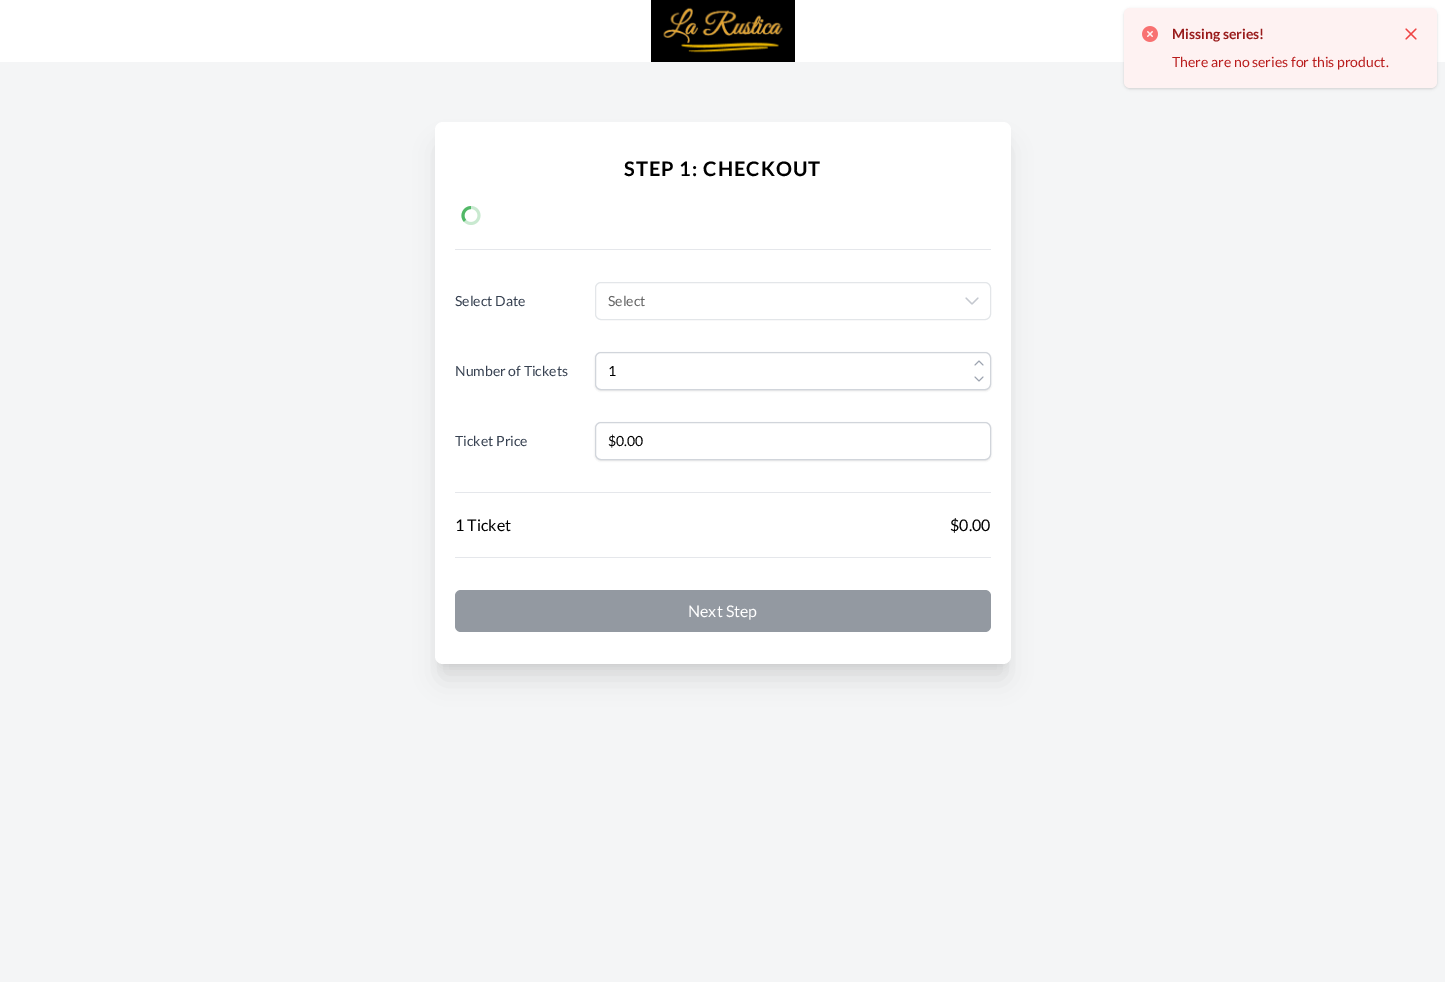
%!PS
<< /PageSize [1445 982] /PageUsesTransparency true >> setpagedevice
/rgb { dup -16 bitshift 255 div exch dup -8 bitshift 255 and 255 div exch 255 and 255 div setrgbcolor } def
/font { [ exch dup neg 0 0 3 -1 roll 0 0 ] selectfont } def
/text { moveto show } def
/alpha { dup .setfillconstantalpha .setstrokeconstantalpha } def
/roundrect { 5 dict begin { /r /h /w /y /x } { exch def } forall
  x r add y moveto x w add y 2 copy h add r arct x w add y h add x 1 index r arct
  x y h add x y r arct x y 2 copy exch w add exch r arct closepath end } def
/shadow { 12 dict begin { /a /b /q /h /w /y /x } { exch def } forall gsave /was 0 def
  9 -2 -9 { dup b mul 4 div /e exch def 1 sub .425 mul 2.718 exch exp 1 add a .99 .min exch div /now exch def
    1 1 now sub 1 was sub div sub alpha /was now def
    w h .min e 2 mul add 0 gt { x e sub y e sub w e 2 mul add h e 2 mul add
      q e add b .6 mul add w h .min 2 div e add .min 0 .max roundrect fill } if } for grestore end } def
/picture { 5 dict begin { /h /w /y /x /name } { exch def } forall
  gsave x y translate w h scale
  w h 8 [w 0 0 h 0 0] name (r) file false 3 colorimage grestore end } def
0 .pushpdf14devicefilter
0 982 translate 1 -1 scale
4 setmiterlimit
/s1 { /Lato-Bold 14 font 16#991B1B rgb } def
/s2 { /Lato-Regular 14 font 16#B91C1C rgb } def
/s3 { /Lato-Regular 14 font 16#374151 rgb } def
/s4 { /Lato-Regular 14 font 16#666666 rgb } def
/s5 { /Lato-Regular 14 font 16#000000 rgb } def
/s6 { /Lato-Regular 16 font 16#000000 rgb } def
/s7 { /Lato-Regular 16 font 16#FFFFFF rgb } def
16#F4F5F6 rgb
0 0 1445 982 rectfill
16#FFFFFF rgb
0 0 1445 62 rectfill
(pic1.raw) 651 0 144 62 picture
16#000000 rgb
1125 10 311 78 5 1 0.1 shadow
1124 9 313 80 6 1.5 0.1 shadow
16#FEF2F2 rgb
1124 8 313 80 6 roundrect fill
(pic2.raw) 1142 26 16 16 picture
s1
(Missing series!) 1172 39 text
s2
(There are no series for this product.) 1172 67 text
16#EF4444 rgb
1.2 setlinewidth
1 setlinecap
1 setlinejoin
1406 39 moveto 1416 29 lineto 1406 29 moveto 1416 39 lineto stroke
16#000000 rgb
441 136 564 530 2 5 0.1 shadow
440 147 566 532 3 12.5 0.1 shadow
16#FFFFFF rgb
435 122 576 542 8 roundrect fill
/Lato-Bold 20 font
16#000000 rgb
624 176 moveto 1 0 (STEP 1: CHECKOUT) ashow
16#E5E7EB rgb
455 249 536 1 rectfill
(pic3.raw) 461 206 20 19 picture
s3
(Select Date) 455 306 text
16#E3E6E9 rgb
1 setlinewidth
0 setlinecap
0 setlinejoin
595.5 282.5 395 37 5.5 roundrect stroke
s4
(Select) 608 306 text
16#C4C8CF rgb
1.2 setlinewidth
1 setlinecap
1 setlinejoin
978 298 moveto 972 304 lineto 966 298 lineto stroke
s3
(Number of Tickets) 455 376 text
16#000000 rgb
595 353 396 38 6 1 0.05 shadow
595 353 396 38 6 1 0.05 shadow
16#FFFFFF rgb
595.5 352.5 395 37 5.5 roundrect gsave fill grestore
16#D1D5DB rgb
1 setlinewidth
0 setlinecap
0 setlinejoin
stroke
s5
(1) 608 376 text
16#9CA3AF rgb
0.8 setlinewidth
1 setlinecap
1 setlinejoin
975 365 moveto 979 361 lineto 983 365 lineto 983 377 moveto 979 381 lineto 975 377 lineto stroke
s3
(Ticket Price) 455 446 text
16#000000 rgb
595 423 396 38 6 1 0.05 shadow
595 423 396 38 6 1 0.05 shadow
16#FFFFFF rgb
595.5 422.5 395 37 5.5 roundrect gsave fill grestore
16#D1D5DB rgb
1 setlinewidth
0 setlinecap
0 setlinejoin
stroke
s5
($0.00) 608 446 text
16#E5E7EB rgb
455 492 536 1 rectfill
455 557 536 1 rectfill
s6
(1 Ticket) 455 531 text
($0.00) 950 531 text
16#9399A1 rgb
455 590 536 42 6 roundrect fill
s7
(Next Step) 688 617 text
.poppdf14devicefilter showpage
